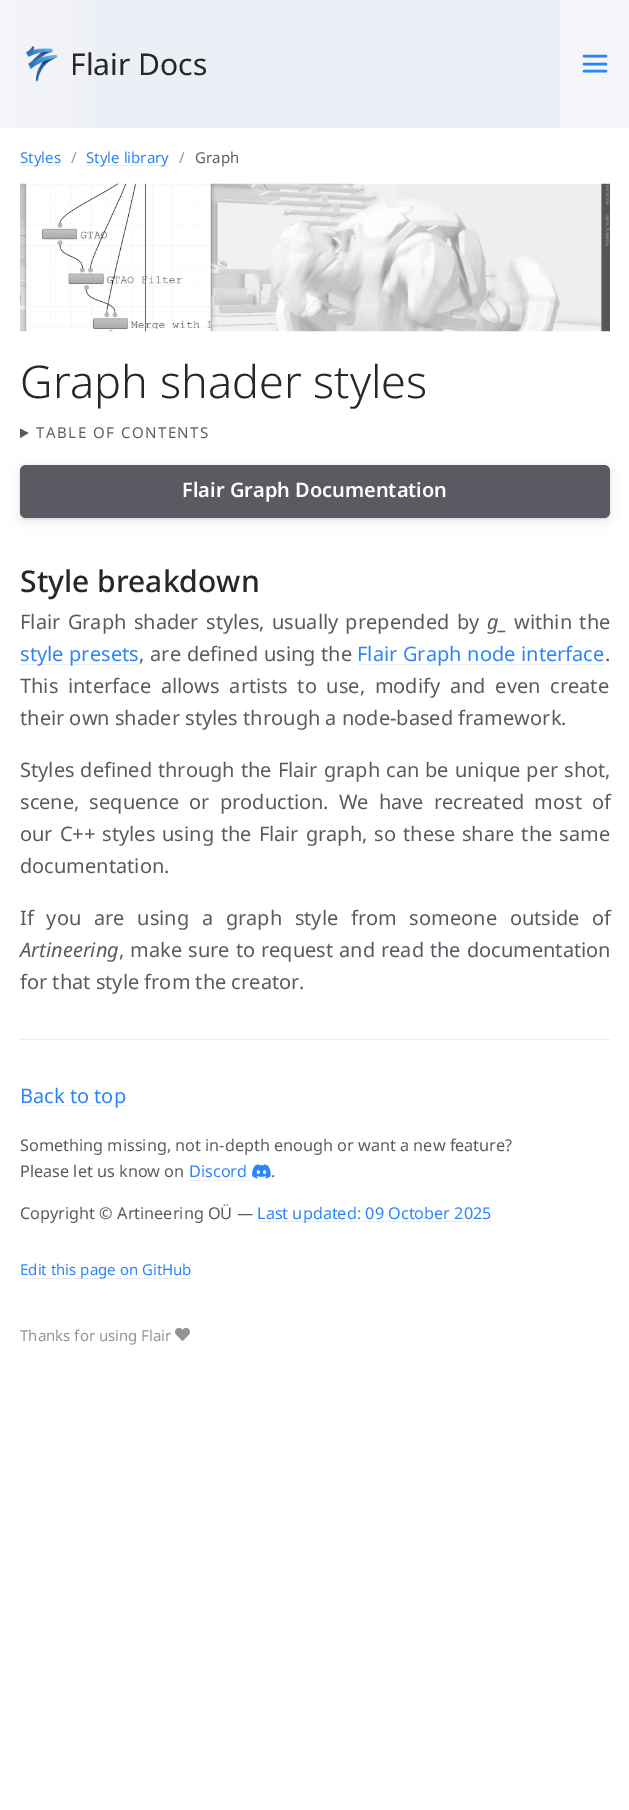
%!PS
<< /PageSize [629 1810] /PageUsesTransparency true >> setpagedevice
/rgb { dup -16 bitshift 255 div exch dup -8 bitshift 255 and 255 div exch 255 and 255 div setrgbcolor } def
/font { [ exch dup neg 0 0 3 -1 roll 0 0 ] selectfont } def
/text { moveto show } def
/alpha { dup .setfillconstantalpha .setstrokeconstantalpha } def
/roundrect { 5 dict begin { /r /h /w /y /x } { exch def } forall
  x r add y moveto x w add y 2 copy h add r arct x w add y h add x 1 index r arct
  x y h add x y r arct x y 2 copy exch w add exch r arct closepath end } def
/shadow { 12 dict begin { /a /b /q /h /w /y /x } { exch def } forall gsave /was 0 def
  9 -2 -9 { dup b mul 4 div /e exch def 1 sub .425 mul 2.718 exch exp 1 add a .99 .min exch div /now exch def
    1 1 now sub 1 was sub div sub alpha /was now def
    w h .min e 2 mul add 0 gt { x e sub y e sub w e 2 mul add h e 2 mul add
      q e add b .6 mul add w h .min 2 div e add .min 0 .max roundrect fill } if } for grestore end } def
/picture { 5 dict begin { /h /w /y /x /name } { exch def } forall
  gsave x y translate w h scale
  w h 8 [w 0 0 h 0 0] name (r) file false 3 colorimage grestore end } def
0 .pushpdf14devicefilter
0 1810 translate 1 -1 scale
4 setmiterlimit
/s1 { /NotoSans-Regular 30 font 16#27262B rgb } def
/s2 { /NotoSans-Regular 15 font 16#959396 rgb } def
/s3 { /NotoSans-Regular 15 font 16#2C84FA rgb } def
/s4 { /NotoSans-Regular 15 font 16#5C5962 rgb } def
/s5 { /NotoSans-Light 45 font 16#27262B rgb } def
/s6 { /NotoSans-SemiBold 20 font 16#FFFFFF rgb } def
/s7 { /NotoSans-Medium 30 font 16#27262B rgb } def
/s8 { /NotoSans-Italic 20 font 16#5C5962 rgb } def
/s9 { /NotoSans-Regular 20 font 16#5C5962 rgb } def
/s10 { /NotoSans-Regular 20 font 16#2C84FA rgb } def
/s11 { /NotoSans-Regular 16.25 font 16#5C5962 rgb } def
/s12 { /NotoSans-Regular 16.25 font 16#2C84FA rgb } def
16#FFFFFF rgb
0 0 629 1810 rectfill
16#F5F6FA rgb
560 0 69 128 rectfill
gsave 0 0 moveto 560 0 lineto 560 128 lineto 0 128 lineto closepath clip newpath
<< /ShadingType 2 /ColorSpace /DeviceRGB /Coords [560 64 0 64] /Extend [true true] /Function << /FunctionType 3 /Domain [0 1] /Functions [<< /FunctionType 2 /Domain [0 1] /C0 [0.922 0.929 0.961] /C1 [0.929 0.937 0.965] /N 1 >> << /FunctionType 2 /Domain [0 1] /C0 [0.929 0.937 0.965] /C1 [0.961 0.965 0.98] /N 1 >>] /Bounds [0.8] /Encode [0 1 0 1] >> >> shfill grestore
(pic1.raw) 25 46 33 36 picture
s1
(Flair Docs) 70 75 text
16#2C84FA rgb
2.5 setlinewidth
1 setlinecap
1 setlinejoin
584 64 moveto 606 64 lineto 584 56 moveto 606 56 lineto 584 71 moveto 606 71 lineto stroke
s2
(Thanks for using Flair) 20 1341 text
(pic2.raw) 175 1327 15 14 picture
16#EEEBEE rgb
20 165 41 1 rectfill
s3
(Styles) 20 163 text
s2
(/) 71 163 text
16#EEEBEE rgb
86 165 84 1 rectfill
s3
(Style library) 86 163 text
s2
(/) 179 163 text
s4
(Graph) 195 163 text
(pic3.raw) 20 183 590 149 picture
s5
(Graph shader styles) 20 398 text
16#5C5962 rgb
20 428.5 moveto 28.5 433 lineto 20 438 lineto closepath fill
/NotoSans-Regular 15 font
36 438 moveto 1.5 0 (TABLE OF CONTENTS) ashow
16#000000 rgb
20 469 590 52 6 6 0.08 shadow
20 466 590 53 6 1 0.12 shadow
16#5C5962 rgb
20 465 590 53 6 roundrect fill
s6
(Flair Graph Documentation) 182 497 text
s7
(Style breakdown) 20 592 text
/NotoSans-Regular 20 font
16#5C5962 rgb
20 629 moveto 2.25 0 32 (Flair Graph shader styles, usually prepended by) widthshow
s8
(g_) 487 629 text
/NotoSans-Regular 20 font
514 629 moveto 2.25 0 32 (within the) widthshow
16#EEEBEE rgb
20 664 119 1 rectfill
16#2C84FA rgb
20 661 moveto 0.5 0 32 (style presets) widthshow
16#5C5962 rgb
139 661 moveto 0.5 0 32 (, are defined using the) widthshow
16#EEEBEE rgb
358 664 247 1 rectfill
16#2C84FA rgb
357 661 moveto 0.5 0 32 (Flair Graph node interface) widthshow
s9
(.) 605 661 text
20 693 moveto 4.5 0 32 (This interface allows artists to use, modify and even create) widthshow
(their own shader styles through a node-based framework.) 20 725 text
20 777 moveto 0.75 0 32 (Styles defined through the Flair graph can be unique per shot,) widthshow
20 809 moveto 4.75 0 32 (scene, sequence or production. We have recreated most of) widthshow
20 841 moveto 1.75 0 32 (our C++ styles using the Flair graph, so these share the same) widthshow
(documentation.) 20 873 text
20 925 moveto 7.5 0 32 (If you are using a graph style from someone outside of) widthshow
s8
(Artineering) 20 957 text
/NotoSans-Regular 20 font
119 957 moveto 0.75 0 32 (, make sure to request and read the documentation) widthshow
(for that style from the creator.) 20 989 text
16#EEEBEE rgb
20 1039 590 1 rectfill
20 1105 106 1 rectfill
s10
(Back to top) 20 1103 text
s11
(Something missing, not in-depth enough or want a new feature?) 20 1151 text
(Please let us know on) 20 1177 text
s12
(Discord) 189 1177 text
16#EEEBEE rgb
189 1180 62 1 rectfill
(pic4.raw) 252 1164 19 15 picture
s11
(.) 271 1177 text
(Copyright © Artineering OÜ —) 20 1219 text
16#EEEBEE rgb
258 1221 233 1 rectfill
s12
(Last updated: 09 October 2025) 257 1219 text
16#EEEBEE rgb
20 1278 171 1 rectfill
s3
(Edit this page on GitHub) 20 1275 text
.poppdf14devicefilter showpage
